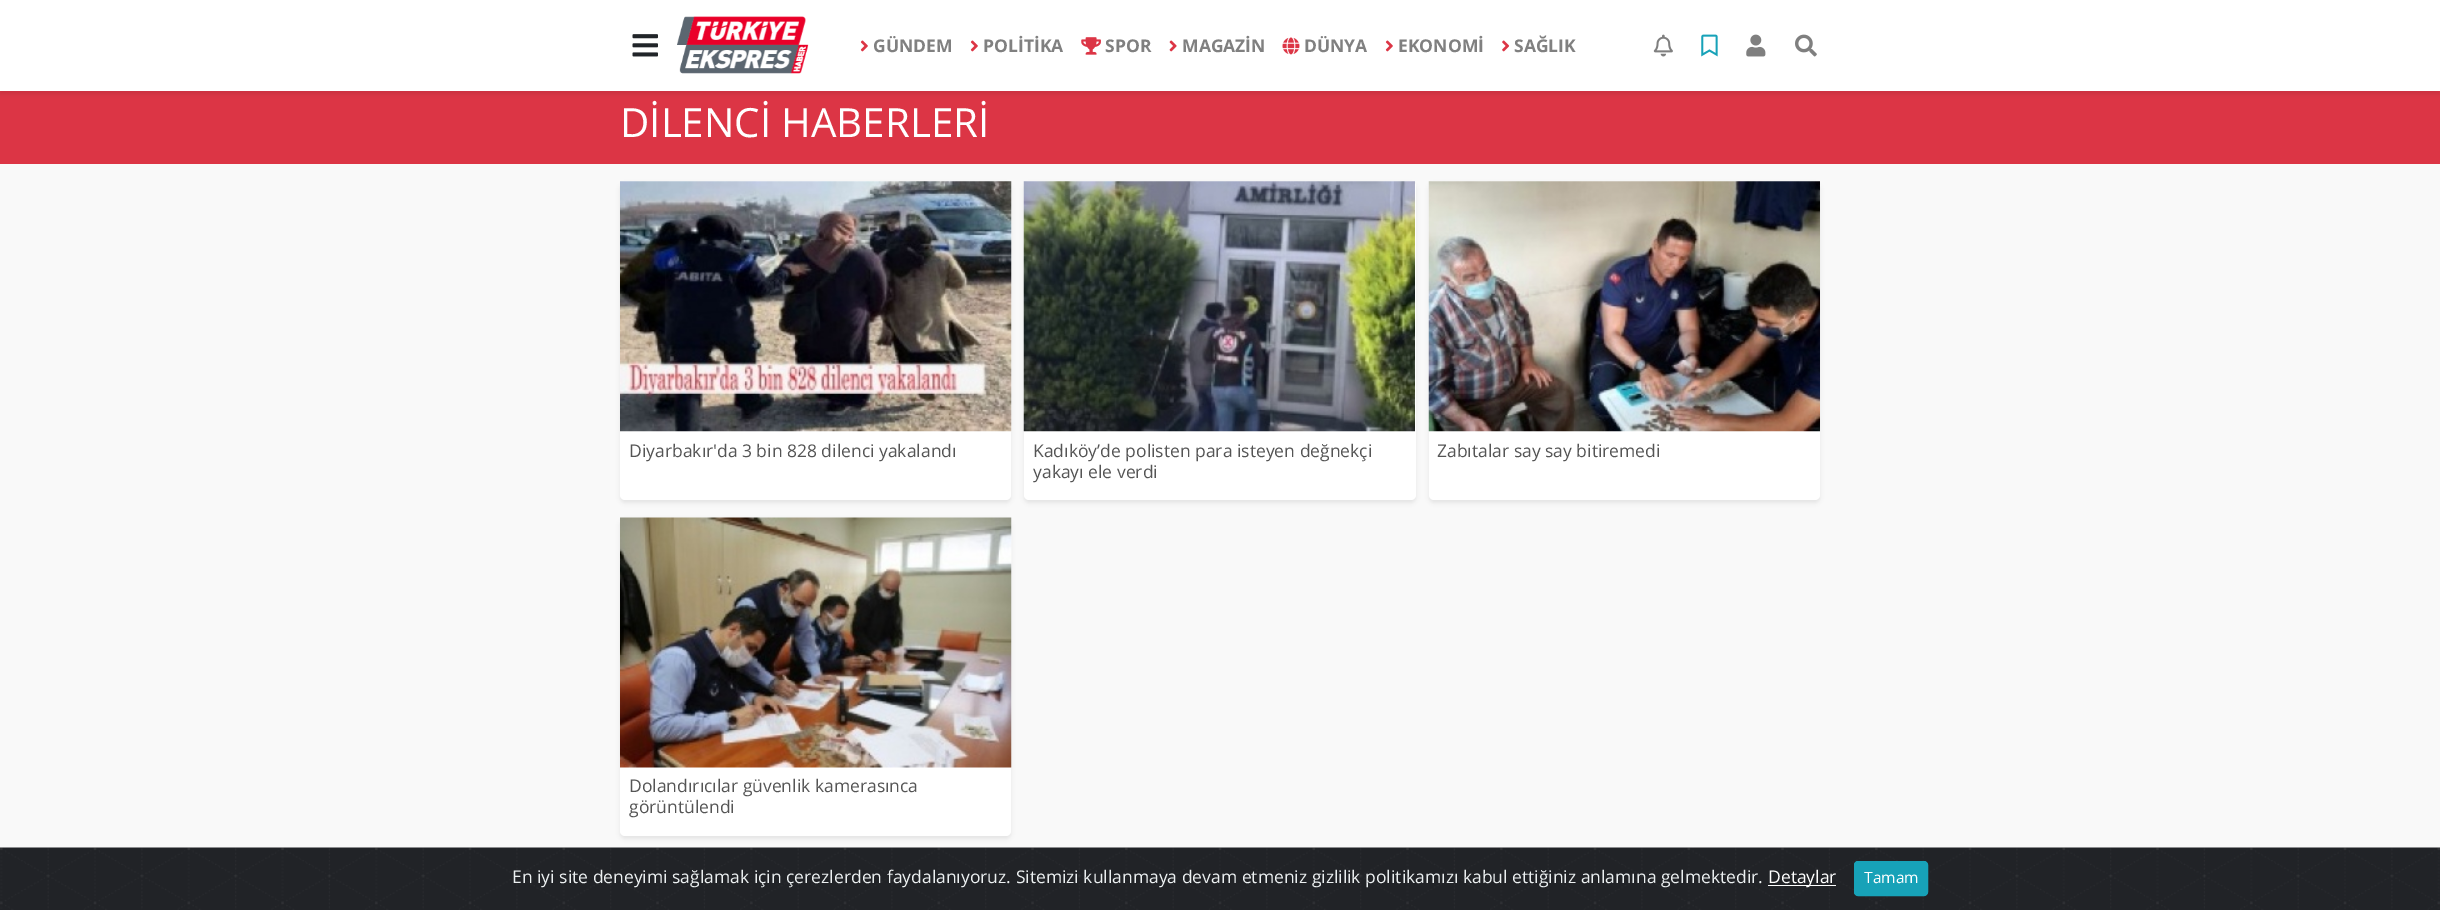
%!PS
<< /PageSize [2440 910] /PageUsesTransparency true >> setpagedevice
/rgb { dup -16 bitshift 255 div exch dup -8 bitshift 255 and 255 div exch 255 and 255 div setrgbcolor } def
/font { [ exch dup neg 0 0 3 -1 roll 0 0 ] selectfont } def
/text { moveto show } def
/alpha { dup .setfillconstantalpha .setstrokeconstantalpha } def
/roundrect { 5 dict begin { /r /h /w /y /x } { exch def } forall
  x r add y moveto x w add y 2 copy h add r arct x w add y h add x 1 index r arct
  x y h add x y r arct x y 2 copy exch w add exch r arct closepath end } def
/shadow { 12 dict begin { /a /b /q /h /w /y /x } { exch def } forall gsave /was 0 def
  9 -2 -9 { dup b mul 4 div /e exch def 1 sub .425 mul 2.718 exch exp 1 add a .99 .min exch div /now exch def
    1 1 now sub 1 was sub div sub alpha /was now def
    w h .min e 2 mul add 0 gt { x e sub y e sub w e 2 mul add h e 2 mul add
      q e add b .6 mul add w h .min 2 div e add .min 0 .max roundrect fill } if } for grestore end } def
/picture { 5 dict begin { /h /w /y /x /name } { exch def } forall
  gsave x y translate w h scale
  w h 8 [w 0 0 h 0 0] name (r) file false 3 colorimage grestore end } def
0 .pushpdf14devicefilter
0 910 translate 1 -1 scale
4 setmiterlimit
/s1 { /OpenSans-Bold 17.5 font 16#808080 rgb } def
/s2 { /OpenSans-Regular 40.25 font 16#FFFFFF rgb } def
/s3 { /OpenSans-Regular 17.5 font 16#555555 rgb } def
/s4 { /OpenSans-Regular 17.5 font 16#ECF0F1 rgb } def
/s5 { /OpenSans-Regular 17.5 font 16#FFFFFF rgb } def
/s6 { /OpenSans-Regular 15.5 font 16#FFFFFF rgb } def
16#F9F9F9 rgb
0 0 2440 910 rectfill
16#DC3545 rgb
0 91 2440 73 rectfill
16#000000 rgb
0 3 2440 91 0 2 0.07 shadow
16#FFFFFF rgb
0 0 2440 91 rectfill
(pic1.raw) 632 34 26 23 picture
(pic2.raw) 677 16 132 58 picture
(pic3.raw) 860 40 8 12 picture
s1
(GÜNDEM) 873 52 text
(pic3.raw) 970 40 8 12 picture
(POLİTİKA) 983 52 text
(pic4.raw) 1081 37 20 18 picture
(SPOR) 1105 52 text
(pic5.raw) 1169 40 8 12 picture
(MAGAZİN) 1182 52 text
(pic6.raw) 1282 37 18 18 picture
(DÜNYA) 1304 52 text
(pic3.raw) 1385 40 8 12 picture
(EKONOMİ) 1398 52 text
(pic7.raw) 1502 40 8 12 picture
(SAĞLIK) 1514 52 text
(pic8.raw) 1653 34 20 23 picture
(pic9.raw) 1701 34 17 23 picture
(pic10.raw) 1746 34 20 23 picture
(pic11.raw) 1795 34 22 23 picture
s2
(DİLENCİ HABERLERİ) 620 137 text
16#000000 rgb
620 184 391 319 5 2 0.07 shadow
16#FFFFFF rgb
620 181 391 319 5 roundrect fill
(pic12.raw) 620 181 392 251 picture
s3
(Diyarbakır'da 3 bin 828 dilenci yakalandı) 629 457 text
16#000000 rgb
1024 184 392 319 5 2 0.07 shadow
16#FFFFFF rgb
1024 181 392 319 5 roundrect fill
(pic13.raw) 1023 181 392 251 picture
s3
(Kadıköy’de polisten para isteyen değnekçi) 1033 457 text
(yakayı ele verdi) 1033 478 text
16#000000 rgb
1429 184 391 319 5 2 0.07 shadow
16#FFFFFF rgb
1429 181 391 319 5 roundrect fill
(pic14.raw) 1428 181 392 251 picture
s3
(Zabıtalar say say bitiremedi) 1437 457 text
16#000000 rgb
620 520 391 319 5 2 0.07 shadow
16#FFFFFF rgb
620 518 391 318 5 roundrect fill
(pic15.raw) 620 517 392 251 picture
s3
(Dolandırıcılar güvenlik kamerasınca) 629 792 text
(görüntülendi) 629 813 text
(pic16.raw) 0 847 2440 63 picture
s4
(En iyi site deneyimi sağlamak için çerezlerden faydalanıyoruz. Sitemizi kullanmaya devam etmeniz gizlilik politikamızı kabul ettiğiniz anlamına gelmektedir.) 512 883 text
16#FFFFFF rgb
1768 885 68 1 rectfill
(Detaylar) 1768 883 text
16#17A2B8 rgb
1854.5 861.5 73 34 3.5 roundrect gsave fill grestore
stroke
s6
(Tamam) 1864 883 text
.poppdf14devicefilter showpage
